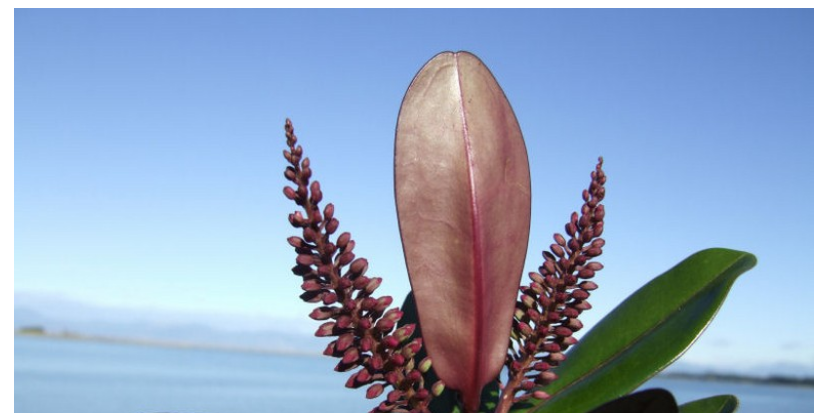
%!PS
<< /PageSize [827 413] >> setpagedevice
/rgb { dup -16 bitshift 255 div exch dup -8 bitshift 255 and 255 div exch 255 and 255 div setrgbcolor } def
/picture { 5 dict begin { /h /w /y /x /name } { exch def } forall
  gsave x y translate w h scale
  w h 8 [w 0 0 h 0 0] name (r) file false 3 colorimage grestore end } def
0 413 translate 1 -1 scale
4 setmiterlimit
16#FFFFFF rgb
0 0 827 413 rectfill
(pic1.raw) 14 8 800 405 picture
showpage
